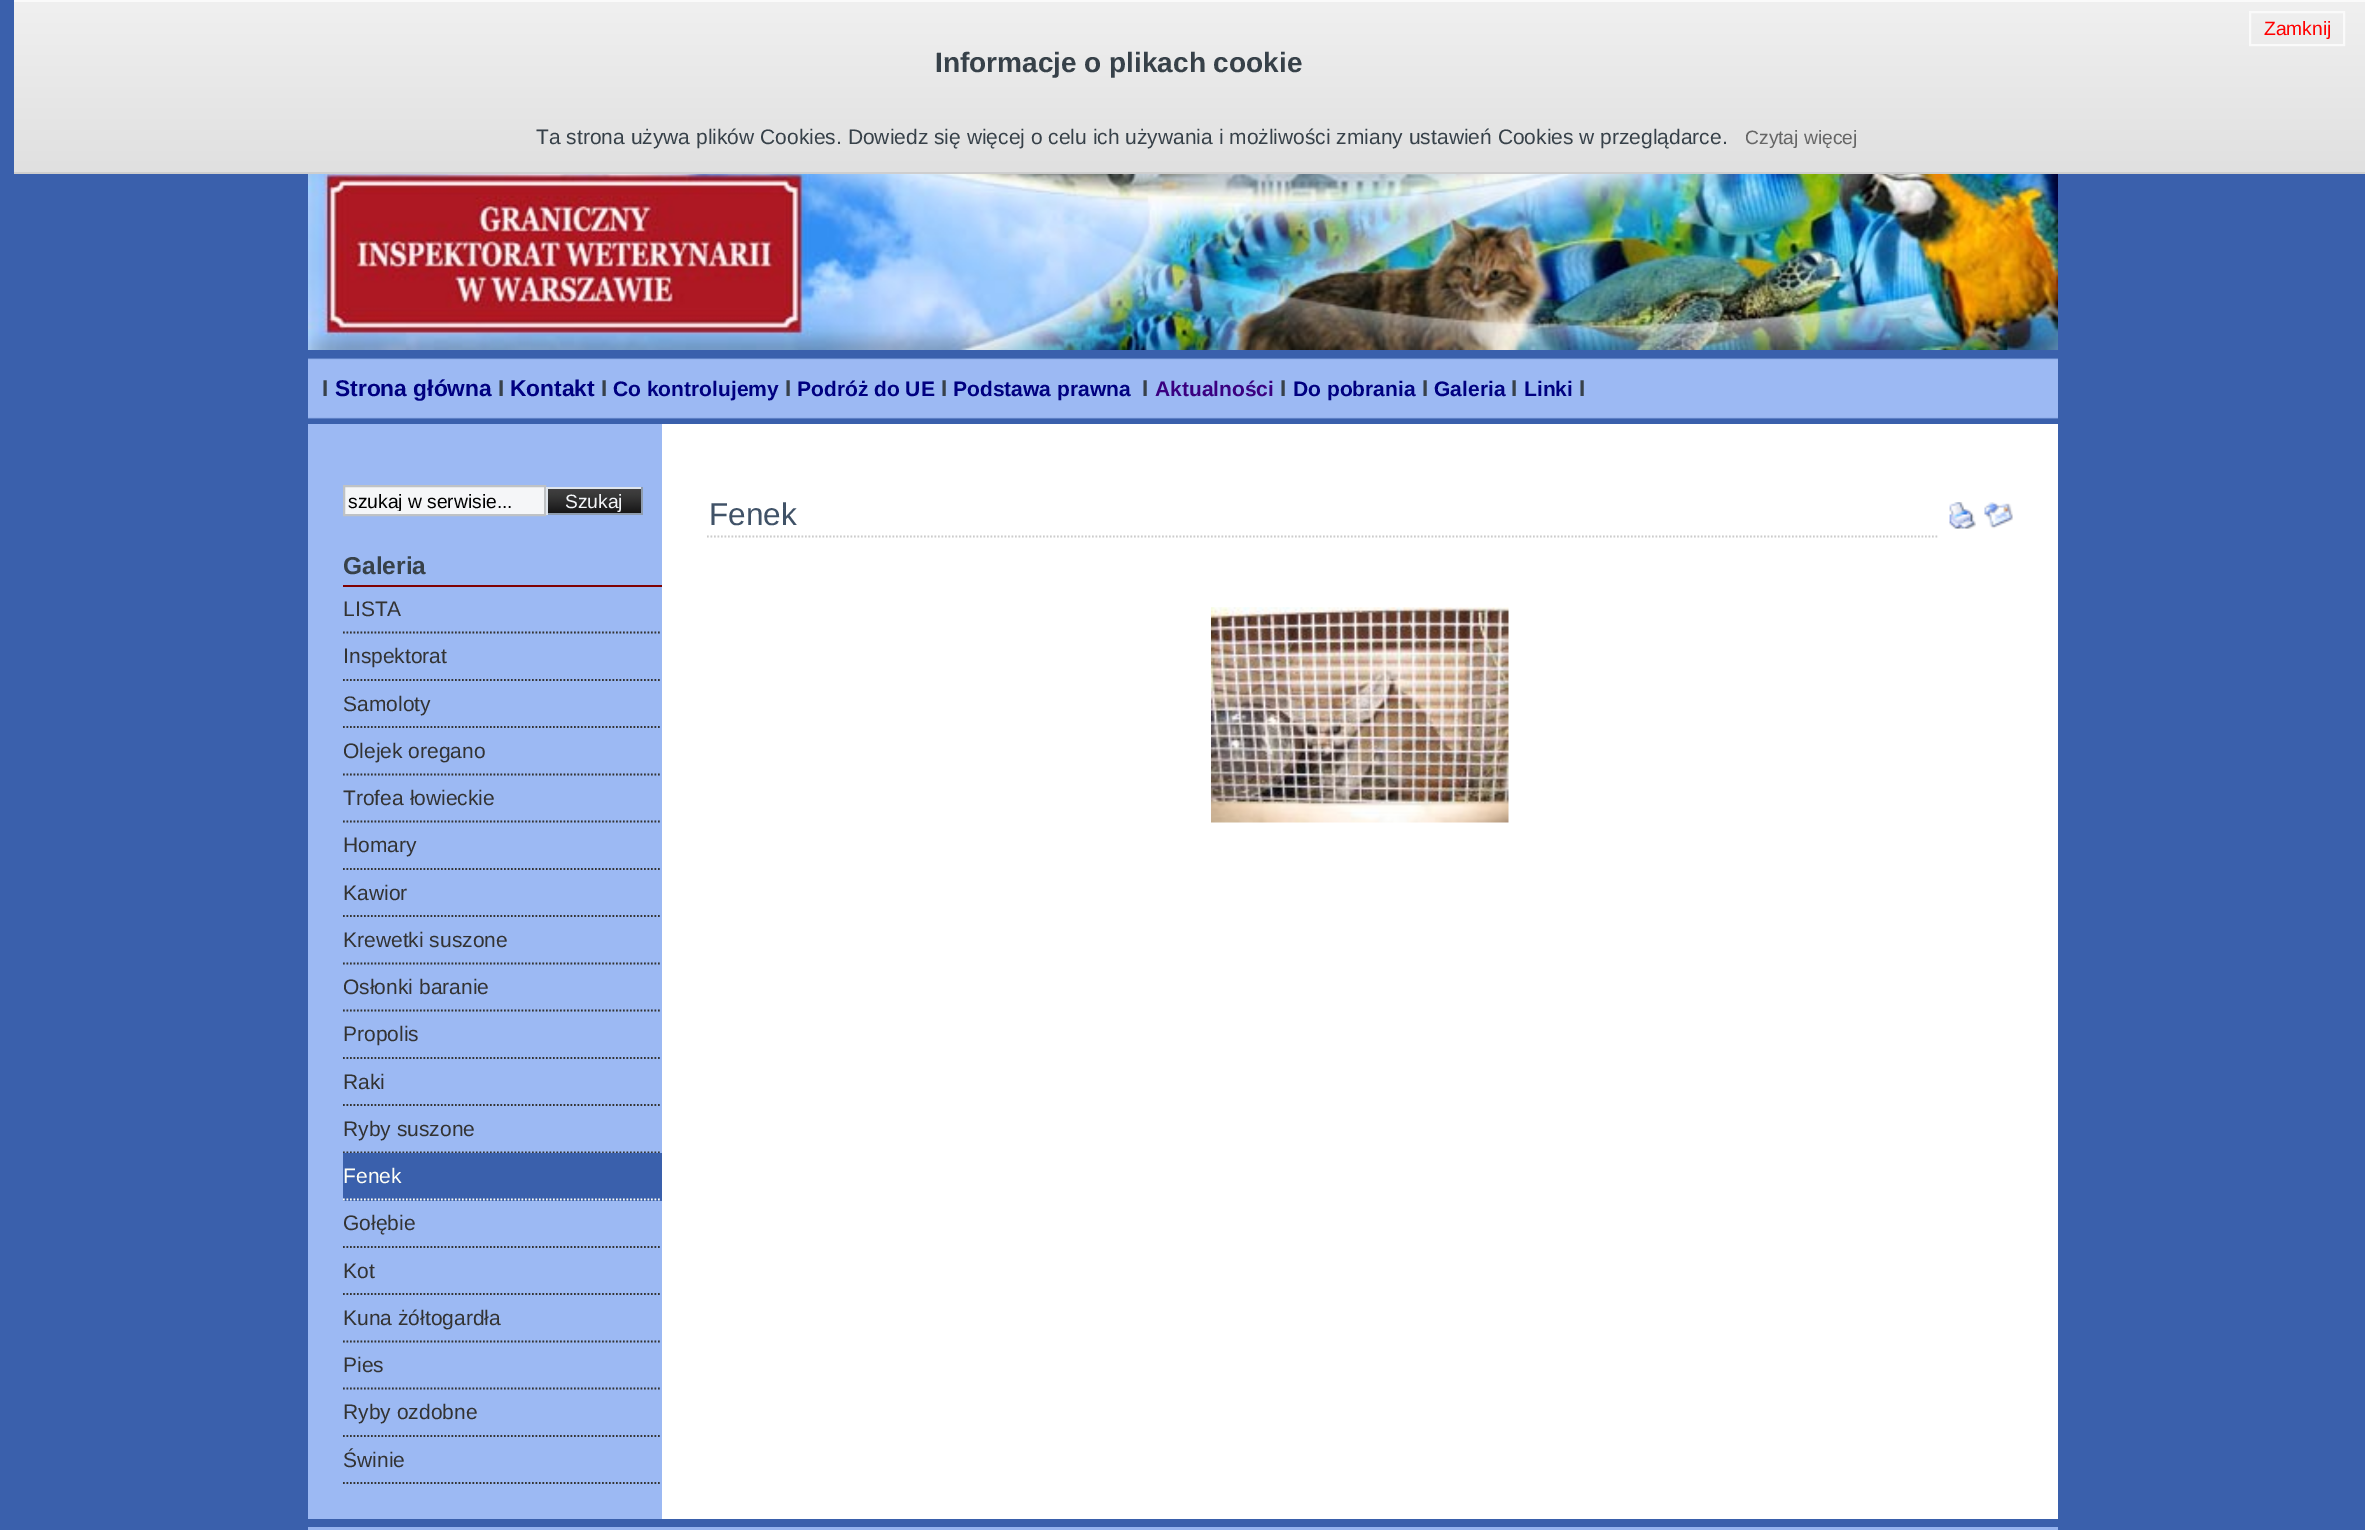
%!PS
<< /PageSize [2365 1530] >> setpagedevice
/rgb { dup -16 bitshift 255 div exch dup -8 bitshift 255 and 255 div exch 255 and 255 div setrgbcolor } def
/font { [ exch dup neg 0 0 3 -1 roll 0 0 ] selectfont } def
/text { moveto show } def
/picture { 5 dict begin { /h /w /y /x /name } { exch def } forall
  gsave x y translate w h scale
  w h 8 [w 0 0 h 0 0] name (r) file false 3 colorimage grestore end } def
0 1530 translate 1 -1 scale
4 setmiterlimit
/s1 { /LiberationSans-Regular 19.25 font 16#FF0000 rgb } def
/s2 { /LiberationSans-Bold 28 font 16#374149 rgb } def
/s3 { /LiberationSans-Regular 21 font 16#374149 rgb } def
/s4 { /LiberationSans-Regular 19.25 font 16#666666 rgb } def
/s5 { /LiberationSans-Bold 22.75 font 16#374149 rgb } def
/s6 { /LiberationSans-Bold 22.75 font 16#000080 rgb } def
/s7 { /LiberationSans-Bold 21 font 16#000080 rgb } def
/s8 { /LiberationSans-Bold 21 font 16#3A0080 rgb } def
/s9 { /LiberationSans-Regular 19.25 font 16#000000 rgb } def
/s10 { /LiberationSans-Regular 19.25 font 16#F3F5F8 rgb } def
/s11 { /LiberationSans-Bold 24.5 font 16#374149 rgb } def
/s12 { /LiberationSans-Regular 21 font 16#333333 rgb } def
/s13 { /LiberationSans-Regular 21 font 16#FFFFF6 rgb } def
/s14 { /LiberationSans-Regular 31.5 font 16#405267 rgb } def
16#3A60AC rgb
0 0 2365 1530 rectfill
gsave 14 2 moveto 2365 2 lineto 2365 172 lineto 14 172 lineto closepath clip newpath
<< /ShadingType 2 /ColorSpace /DeviceRGB /Coords [14 172 14 1.8] /Extend [true true] /Function << /FunctionType 3 /Domain [0 1] /Functions [<< /FunctionType 2 /Domain [0 1] /C0 [0.878 0.878 0.878] /C1 [0.937 0.937 0.937] /N 1 >> << /FunctionType 2 /Domain [0 1] /C0 [0.937 0.937 0.937] /C1 [0.937 0.937 0.937] /N 1 >>] /Bounds [0.95] /Encode [0 1 0 1] >> >> shfill grestore
16#FAFAFA rgb
14 0 2351 2 rectfill
16#CECECE rgb
14 172 2351 2 rectfill
16#FAFAFA rgb
2 setlinewidth
2250 12 94 33 rectstroke
s1
(Zamknij) 2264 35 text
s2
(Informacje o plikach cookie) 935 72 text
s3
(Ta strona używa plików Cookies. Dowiedz się więcej o celu ich używania i możliwości zmiany ustawień Cookies w przeglądarce.) 536 144 text
s4
(Czytaj więcej) 1745 144 text
(pic1.raw) 308 174 1750 176 picture
(pic2.raw) 308 358 1750 61 picture
s5
(I) 322 396 text
s6
(Strona główna) 335 396 text
s5
(I) 498 396 text
s6
(Kontakt) 510 396 text
s5
(I) 601 396 text
s7
(Co kontrolujemy) 613 396 text
s5
(I) 785 396 text
s7
(Podróż do UE) 797 396 text
s5
(I) 941 396 text
s7
(Podstawa prawna) 953 396 text
s5
(I) 1142 396 text
s8
(Aktualności) 1155 396 text
s5
(I) 1280 396 text
s7
(Do pobrania) 1293 396 text
s5
(I) 1422 396 text
s7
(Galeria) 1434 396 text
s5
(I) 1511 396 text
s7
(Linki) 1524 396 text
s5
(I) 1579 396 text
16#FFFFFF rgb
662 424 1396 1095 rectfill
16#9CB9F3 rgb
308 424 354 1095 rectfill
16#F5F6F8 rgb
344 486 moveto 545 486 lineto 545 515 lineto 344 515 lineto closepath gsave fill grestore
16#BFC2C5 rgb
stroke
gsave
348 490 193 21 rectclip
s9
(szukaj w serwisie...) 348 508 text
grestore
(pic3.raw) 548 489 93 24 picture
16#DFE5EC rgb
546 487 96 2 rectfill
16#8E9CAE rgb
641 487 2 28 rectfill
546 513 96 2 rectfill
16#DFE5EC rgb
546 487 2 28 rectfill
s10
(Szukaj) 565 508 text
16#800000 rgb
343 585 319 2 rectfill
s11
(Galeria) 343 574 text
16#333333 rgb
1.8 setlinewidth
[1.75 1.75] 0 setdash
343 632.5 moveto 661.5 632.5 lineto stroke
s12
(LISTA) 343 616 text
343 680 moveto 661.5 680 lineto stroke
(Inspektorat) 343 663 text
343 727 moveto 661.5 727 lineto stroke
(Samoloty) 343 711 text
343 774.5 moveto 661.5 774.5 lineto stroke
(Olejek oregano) 343 758 text
343 821.5 moveto 661.5 821.5 lineto stroke
(Trofea łowieckie) 343 805 text
343 869 moveto 661.5 869 lineto stroke
(Homary) 343 852 text
343 916 moveto 661.5 916 lineto stroke
(Kawior) 343 900 text
343 963.5 moveto 661.5 963.5 lineto stroke
(Krewetki suszone) 343 947 text
343 1010.5 moveto 661.5 1010.5 lineto stroke
(Osłonki baranie) 343 994 text
343 1058 moveto 661.5 1058 lineto stroke
(Propolis) 343 1041 text
343 1105 moveto 661.5 1105 lineto stroke
(Raki) 343 1089 text
343 1152.5 moveto 661.5 1152.5 lineto stroke
(Ryby suszone) 343 1136 text
16#3A60AC rgb
343 1153 319 48 rectfill
16#FFFFF6 rgb
343 1199.5 moveto 661.5 1199.5 lineto stroke
(Fenek) 343 1183 text
16#333333 rgb
343 1247 moveto 661.5 1247 lineto stroke
(Gołębie) 343 1230 text
343 1294 moveto 661.5 1294 lineto stroke
(Kot) 343 1278 text
343 1341.5 moveto 661.5 1341.5 lineto stroke
(Kuna żółtogardła) 343 1325 text
343 1388.5 moveto 661.5 1388.5 lineto stroke
(Pies) 343 1372 text
343 1436 moveto 661.5 1436 lineto stroke
(Ryby ozdobne) 343 1419 text
343 1483 moveto 661.5 1483 lineto stroke
(Świnie) 343 1467 text
16#CCCCCC rgb
707 536.5 moveto 1939 536.5 lineto stroke
s14
(Fenek) 709 525 text
(pic4.raw) 1949 502 27 27 picture
(pic5.raw) 1984 502 29 27 picture
(pic6.raw) 1211 607 298 216 picture
16#95B3EE rgb
308 1527 1750 3 rectfill
showpage
